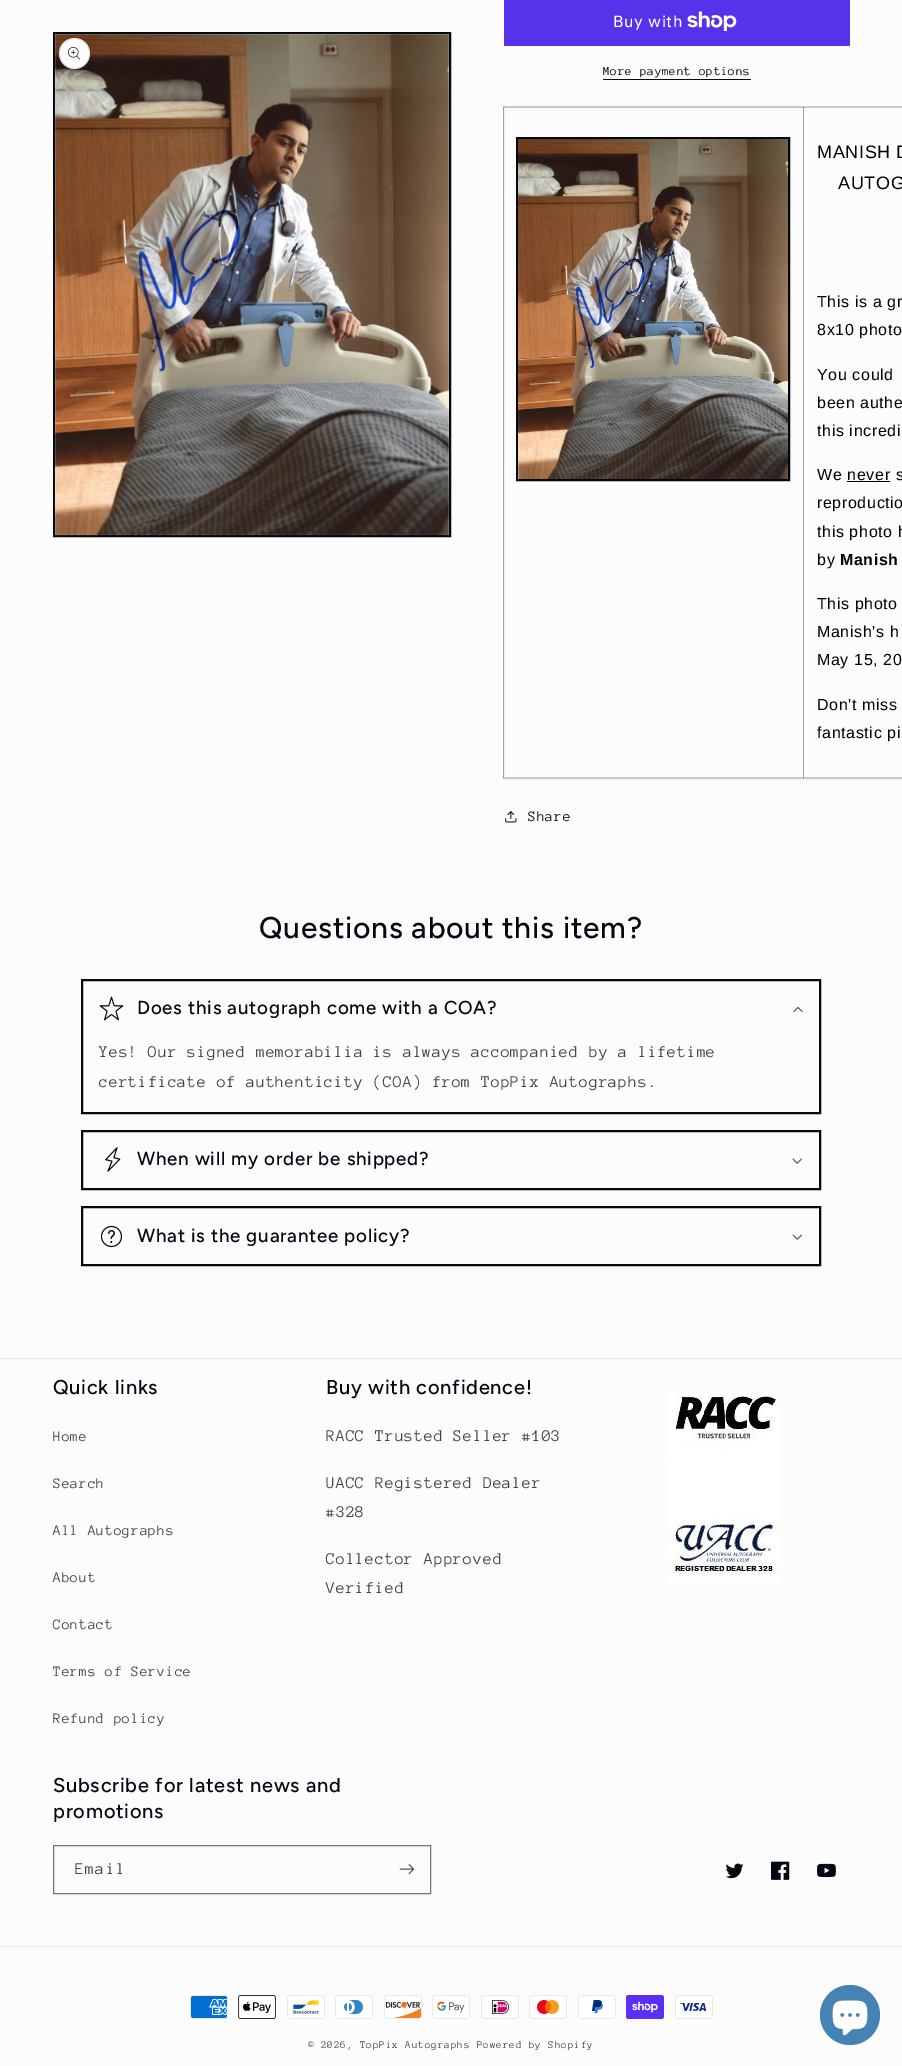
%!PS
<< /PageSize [902 2066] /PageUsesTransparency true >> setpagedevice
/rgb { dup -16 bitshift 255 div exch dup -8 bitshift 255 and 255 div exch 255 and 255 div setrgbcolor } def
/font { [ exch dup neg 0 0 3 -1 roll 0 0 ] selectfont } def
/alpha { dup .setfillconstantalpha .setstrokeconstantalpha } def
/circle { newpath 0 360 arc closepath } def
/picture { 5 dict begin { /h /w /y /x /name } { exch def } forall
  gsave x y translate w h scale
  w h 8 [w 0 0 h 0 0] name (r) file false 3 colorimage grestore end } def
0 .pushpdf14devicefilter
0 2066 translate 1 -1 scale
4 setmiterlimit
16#FCFCFC rgb
0 0 902 2066 rectfill
16#CACBCD rgb
803 107 1 671 rectfill
16#020912 rgb
2 setlinewidth
54 33 396 503 rectstroke
(pic1.raw) 54 33 395 503 picture
16#FCFCFC rgb
74.5 53.5 15.5 circle fill
0.1 alpha
16#020912 rgb
1 setlinewidth
74.5 53.5 15 circle stroke
1 alpha
(pic2.raw) 68 47 13 13 picture
16#5433EB rgb
504 0 346 46 rectfill
/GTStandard-Regular 16 font
16#FFFFFF rgb
613 27 moveto 0.63 0 (Buy with) ashow
(pic3.raw) 687 11 50 20 picture
/AnonymousPro-Regular 12.6 font
16#020912 rgb
603 75 moveto 0.5 0 (More payment options) ashow
603 79 148 1 rectfill
16#CACBCD rgb
503.5 106.5 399 672 rectstroke
803 107 99 1 rectfill
16#A2A4A8 rgb
803 107 1 1 rectfill
0.2 alpha
16#020912 rgb
503 107 301 1 rectfill
1 alpha
16#CACBCD rgb
803 777 99 1 rectfill
16#A2A4A8 rgb
803 777 1 1 rectfill
0.2 alpha
16#020912 rgb
803 107 1 671 rectfill
503 777 301 1 rectfill
503 107 1 671 rectfill
1 alpha
2 setlinewidth
517 138 272 342 rectstroke
(pic4.raw) 518 139 270 340 picture
/LiberationSans-Regular 18 font
16#000000 rgb
817 158 moveto 0.63 0 (MANISH D) ashow
838 189 moveto 0.63 0 (AUTOG) ashow
/LiberationSans-Regular 16 font
817 307 moveto 0.63 0 (This is a gr) ashow
817 335 moveto 0.63 0 (8x10 photo) ashow
817 380 moveto 0.63 0 (You could) ashow
817 408 moveto 0.63 0 (been authe) ashow
817 436 moveto 0.63 0 (this incredi) ashow
817 480 moveto 0.63 0 (We never s) ashow
847 481 43 1 rectfill
817 508 moveto 0.63 0 (reproductio) ashow
817 537 moveto 0.63 0 (this photo h) ashow
817 565 moveto 0.63 0 (by) ashow
/LiberationSans-Bold 16 font
840 565 moveto 0.63 0 (Manish) ashow
/LiberationSans-Regular 16 font
817 609 moveto 0.63 0 (This photo) ashow
817 637 moveto 0.63 0 (Manish's h) ashow
817 665 moveto 0.63 0 (May 15, 20) ashow
817 710 moveto 0.63 0 (Don't miss) ashow
817 738 moveto 0.63 0 (fantastic pi) ashow
(pic5.raw) 505 811 12 12 picture
/AnonymousPro-Regular 14.75 font
16#020912 rgb
528 821 moveto 0.63 0 (Share) ashow
/Figtree-Medium 30 font
259 938 moveto 0.75 0 (Questions about this item?) ashow
82 980 738 133 rectstroke
(pic6.raw) 99 996 25 25 picture
/Figtree-Medium 18.75 font
137 1014 moveto 0.75 0 (Does this autograph come with a COA?) ashow
(pic7.raw) 793 1007 10 6 picture
/AnonymousPro-Regular 16.8 font
16#41464D rgb
99 1057 moveto 0.63 0 (Yes! Our signed memorabilia is always accompanied by a lifetime) ashow
99 1087 moveto 0.63 0 (certificate of authenticity \(COA\) from TopPix Autographs.) ashow
16#020912 rgb
82 1131 738 58 rectstroke
(pic8.raw) 105 1147 16 25 picture
/Figtree-Medium 18.75 font
137 1165 moveto 0.75 0 (When will my order be shipped?) ashow
(pic9.raw) 792 1158 10 6 picture
82 1207 738 58 rectstroke
(pic10.raw) 100 1225 23 23 picture
137 1242 moveto 0.75 0 (What is the guarantee policy?) ashow
(pic9.raw) 792 1234 10 6 picture
16#E8E9E9 rgb
0 1358 902 1 rectfill
/Figtree-Medium 20 font
16#020912 rgb
53 1394 moveto 0.75 0 (Quick links) ashow
/AnonymousPro-Regular 14.75 font
16#41464D rgb
53 1441 moveto 0.63 0 (Home) ashow
53 1488 moveto 0.63 0 (Search) ashow
53 1535 moveto 0.63 0 (All Autographs) ashow
53 1582 moveto 0.63 0 (About) ashow
53 1629 moveto 0.63 0 (Contact) ashow
53 1676 moveto 0.63 0 (Terms of Service) ashow
53 1723 moveto 0.63 0 (Refund policy) ashow
/Figtree-Medium 20 font
16#020912 rgb
326 1394 moveto 0.75 0 (Buy with confidence!) ashow
/AnonymousPro-Regular 16.8 font
16#41464D rgb
326 1441 moveto 0.63 0 (RACC Trusted Seller #103) ashow
326 1488 moveto 0.63 0 (UACC Registered Dealer) ashow
326 1517 moveto 0.63 0 (#328) ashow
326 1564 moveto 0.63 0 (Collector Approved) ashow
326 1593 moveto 0.63 0 (Verified) ashow
(pic11.raw) 668 1391 112 192 picture
/Figtree-Medium 20 font
16#020912 rgb
53 1792 moveto 0.75 0 (Subscribe for latest news and) ashow
53 1818 moveto 0.75 0 (promotions) ashow
16#72767B rgb
1 setlinewidth
53.5 1845.5 377 48 rectstroke
/AnonymousPro-Regular 16.8 font
16#41464D rgb
75 1874 moveto 1 0 (Email) ashow
(pic12.raw) 399 1864 15 11 picture
(pic13.raw) 725 1863 19 16 picture
(pic14.raw) 771 1861 19 19 picture
(pic15.raw) 817 1863 19 15 picture
16#E8E9E9 rgb
0 1946 902 1 rectfill
(pic16.raw) 190 1995 38 24 picture
(pic17.raw) 238 1995 38 24 picture
(pic18.raw) 287 1995 38 24 picture
(pic19.raw) 335 1995 38 24 picture
(pic20.raw) 384 1995 38 24 picture
(pic21.raw) 432 1995 38 24 picture
(pic22.raw) 481 1995 38 24 picture
(pic23.raw) 529 1995 38 24 picture
(pic24.raw) 578 1995 38 24 picture
(pic25.raw) 626 1995 38 24 picture
(pic26.raw) 675 1995 38 24 picture
/AnonymousPro-Regular 10.5 font
16#41464D rgb
308 2048 moveto 0.75 0 (© 2026, TopPix Autographs) ashow
477 2048 moveto 0.75 0 (Powered by Shopify) ashow
16#4682B4 rgb
850 2015 30 circle fill
(pic27.raw) 832 2000 36 36 picture
.poppdf14devicefilter showpage
